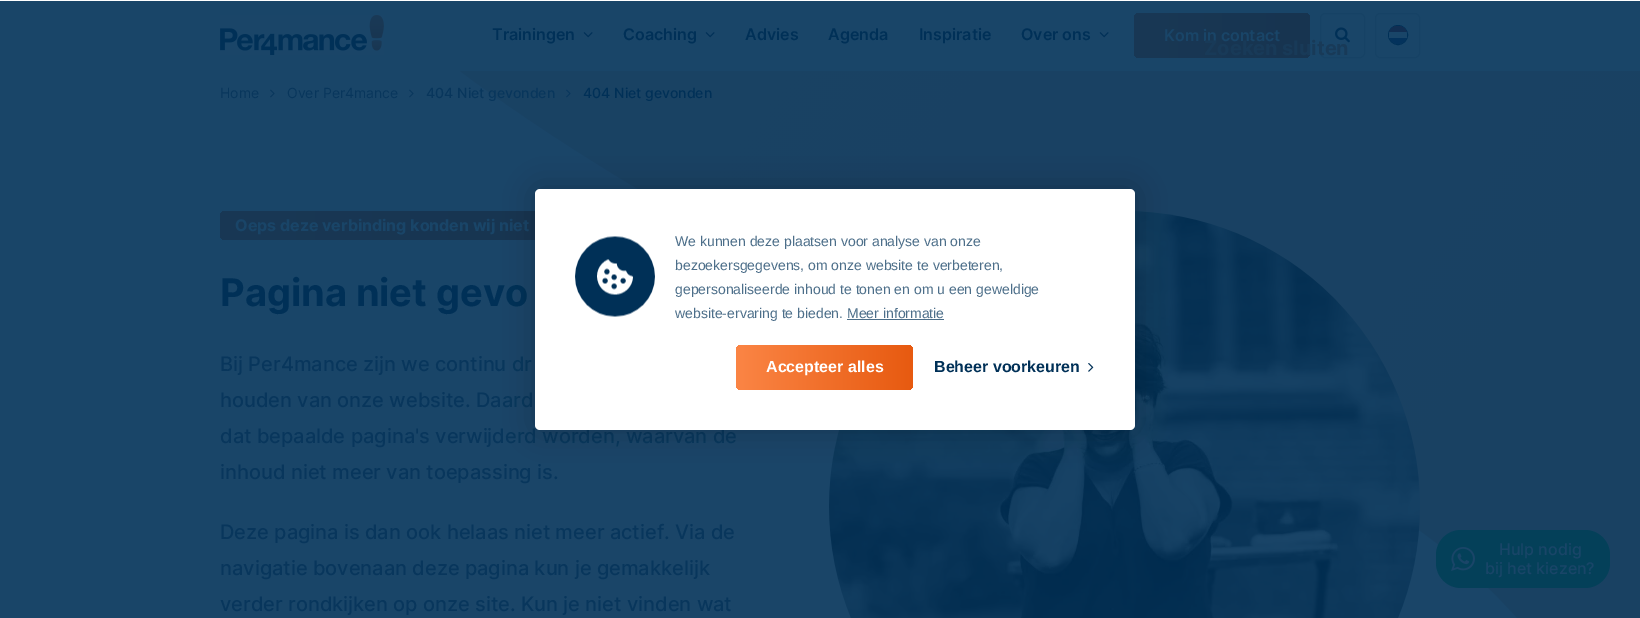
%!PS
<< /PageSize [1640 618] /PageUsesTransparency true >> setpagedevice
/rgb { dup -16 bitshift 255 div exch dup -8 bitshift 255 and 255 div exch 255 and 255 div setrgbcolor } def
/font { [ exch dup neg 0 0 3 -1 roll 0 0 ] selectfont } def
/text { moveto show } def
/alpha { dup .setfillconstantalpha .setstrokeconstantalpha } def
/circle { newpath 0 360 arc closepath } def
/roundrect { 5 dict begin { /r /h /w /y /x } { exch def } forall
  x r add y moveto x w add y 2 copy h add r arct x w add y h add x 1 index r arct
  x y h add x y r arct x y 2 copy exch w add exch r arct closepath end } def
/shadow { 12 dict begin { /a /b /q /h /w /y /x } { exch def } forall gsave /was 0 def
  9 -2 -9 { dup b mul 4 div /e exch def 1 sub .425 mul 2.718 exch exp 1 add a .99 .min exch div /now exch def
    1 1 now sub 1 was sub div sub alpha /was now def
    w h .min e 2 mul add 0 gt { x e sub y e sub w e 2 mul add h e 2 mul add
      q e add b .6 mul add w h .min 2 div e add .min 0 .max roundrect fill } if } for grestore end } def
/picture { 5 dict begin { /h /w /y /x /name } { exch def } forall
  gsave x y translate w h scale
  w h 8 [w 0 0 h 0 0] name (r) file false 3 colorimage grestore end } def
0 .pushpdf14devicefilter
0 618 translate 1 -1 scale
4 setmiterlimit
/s1 { /Inter-SemiBold 16 font 16#003057 rgb } def
/s2 { /Inter-SemiBold 16 font 16#194568 rgb } def
/s3 { /Inter-Bold 20 font 16#183A58 rgb } def
/s4 { /Inter-Regular 14 font 16#08365C rgb } def
/s5 { /Inter-Medium 14 font 16#08365C rgb } def
/s6 { /Inter-Medium 14 font 16#003057 rgb } def
/s7 { /Inter-Bold 16 font 16#194568 rgb } def
/s8 { /Inter-Bold 38 font 16#003057 rgb } def
/s9 { /Inter-Medium 20 font 16#08365C rgb } def
/s10 { /Inter-Medium 16 font 16#194568 rgb } def
/s11 { /LiberationSans-Regular 14 font 16#4C6E89 rgb } def
/s12 { /LiberationSans-Bold 16 font 16#FFFFFF rgb } def
/s13 { /LiberationSans-Bold 16 font 16#003057 rgb } def
16#FFFFFF rgb
0 0 1640 618 rectfill
16#194568 rgb
0 1 1640 617 rectfill
(pic1.raw) 220 15 164 40 picture
s1
(Trainingen) 492 40 text
(pic2.raw) 583 32 10 6 picture
(Coaching) 623 40 text
(pic2.raw) 705 32 10 6 picture
(Advies) 745 40 text
(Agenda) 828 40 text
(Inspiratie) 919 40 text
(Over ons) 1021 40 text
(pic2.raw) 1099 32 10 6 picture
gsave 1134 13 176 45 5 roundrect clip newpath
<< /ShadingType 2 /ColorSpace /DeviceRGB /Coords [1099 36 1345 35] /Extend [true true] /Function << /FunctionType 2 /Domain [0 1] /C0 [0.098 0.224 0.337] /C1 [0.09 0.2 0.31] /N 1 >> >> shfill grestore
s2
(Kom in contact) 1164 41 text
16#164265 rgb
1320.5 13.5 44 44 4.5 roundrect stroke
(pic3.raw) 1335 27 15 16 picture
1375.5 13.5 44 44 4.5 roundrect stroke
16#003057 rgb
1398 35 9.5 circle stroke
16#03325C rgb
1398 35 9 circle fill
gsave
1389 26 18 18 9 roundrect clip newpath
16#194568 rgb
1398 26 moveto 1403 26 1407 30 1407 35 curveto 1407 38 lineto 1389 38 lineto 1389 35 lineto 1389 30 1393 26 1398 26 curveto closepath fill
16#112E52 rgb
1389 26 18 6 rectfill
grestore
s3
(Zoeken sluiten) 1204 55 text
s4
(Home) 220 98 text
(pic4.raw) 270 89 5 9 picture
(Over Per4mance) 287 98 text
(pic4.raw) 409 89 5 9 picture
(pic6.raw) 460 71 1180 547 picture
s5
(404 Niet gevonden) 426 98 text
(pic5.raw) 566 89 5 9 picture
s6
(404 Niet gevonden) 583 98 text
gsave 220 211 380 29 5 roundrect clip newpath
<< /ShadingType 2 /ColorSpace /DeviceRGB /Coords [144 226 676 226] /Extend [true true] /Function << /FunctionType 2 /Domain [0 1] /C0 [0.098 0.224 0.337] /C1 [0.09 0.2 0.31] /N 1 >> >> shfill grestore
s7
(Oeps deze verbinding konden wij niet) 235 231 text
s8
(Pagina niet gevo) 220 306 text
s9
(Bij Per4mance zijn we continu dr) 220 371 text
(houden van onze website. Daard) 220 407 text
(dat bepaalde pagina's verwijderd worden, waarvan de) 220 443 text
(inhoud niet meer van toepassing is.) 220 479 text
(Deze pagina is dan ook helaas niet meer actief. Via de) 220 539 text
(navigatie bovenaan deze pagina kun je gemakkelijk) 220 575 text
(verder rondkijken op onze site. Kun je niet vinden wat) 220 611 text
(pic7.raw) 829 211 591 407 picture
16#044059 rgb
1436 530 174 58 25 roundrect fill
(pic8.raw) 1451 547 24 24 picture
s10
(Hulp nodig) 1499 555 text
(bij het kiezen?) 1485 574 text
16#000000 rgb
535 189 600 241 5 15 0.2 shadow
16#FFFFFF rgb
535 189 600 241 5 roundrect fill
(pic9.raw) 575 236 80 81 picture
s11
(We kunnen deze plaatsen voor analyse van onze) 675 246 text
(bezoekersgegevens, om onze website te verbeteren,) 675 270 text
(gepersonaliseerde inhoud te tonen en om u een geweldige) 675 294 text
(website-ervaring te bieden. Meer informatie) 675 318 text
847 319 97 1 rectfill
gsave 736 345 177 45 5 roundrect clip newpath
<< /ShadingType 2 /ColorSpace /DeviceRGB /Coords [701 367 948 367] /Extend [true true] /Function << /FunctionType 2 /Domain [0 1] /C0 [1 0.553 0.314] /C1 [0.89 0.322 0.02] /N 1 >> >> shfill grestore
s12
(Accepteer alles) 766 372 text
s13
(Beheer voorkeuren) 934 372 text
(pic10.raw) 1088 363 6 9 picture
.poppdf14devicefilter showpage
